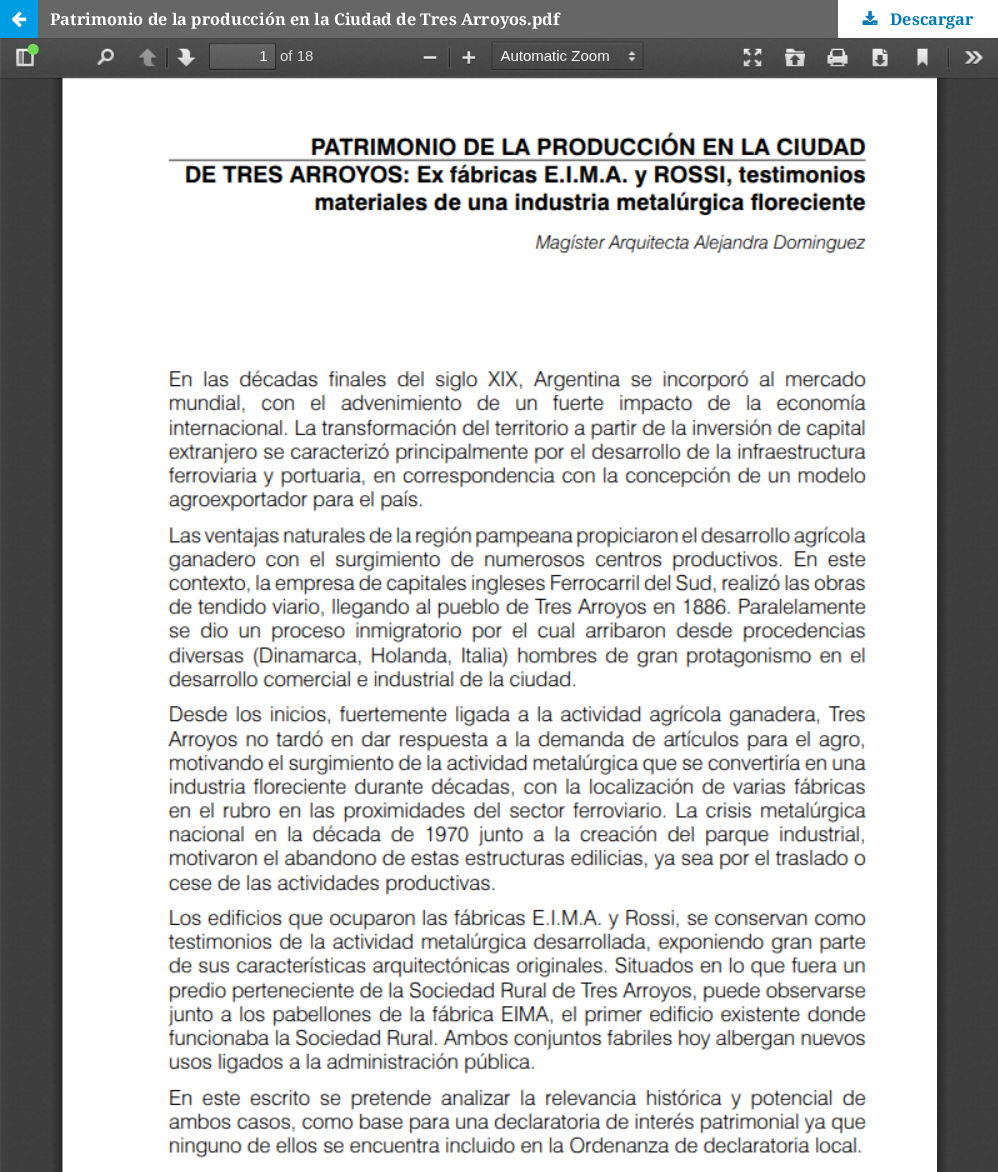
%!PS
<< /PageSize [998 1172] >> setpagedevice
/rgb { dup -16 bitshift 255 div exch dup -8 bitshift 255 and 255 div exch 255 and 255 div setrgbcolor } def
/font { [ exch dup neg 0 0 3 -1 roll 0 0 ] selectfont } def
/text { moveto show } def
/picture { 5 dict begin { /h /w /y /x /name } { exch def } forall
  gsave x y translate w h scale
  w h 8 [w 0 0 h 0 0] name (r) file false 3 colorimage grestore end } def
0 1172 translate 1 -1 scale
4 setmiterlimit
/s1 { /NotoSerif-Bold 16.25 font 16#FFFFFF rgb } def
/s2 { /NotoSerif-Bold 16.25 font 16#007AB2 rgb } def
16#FFFFFF rgb
0 0 998 1172 rectfill
16#666666 rgb
38 0 800 38 rectfill
16#009DE5 rgb
0 0 38 38 rectfill
(pic1.raw) 11 11 16 16 picture
s1
(Patrimonio de la producción en la Ciudad de Tres Arroyos.pdf) 50 25 text
(pic2.raw) 862 11 16 14 picture
s2
(Descargar) 890 25 text
(pic3.raw) 0 38 998 1134 picture
showpage
